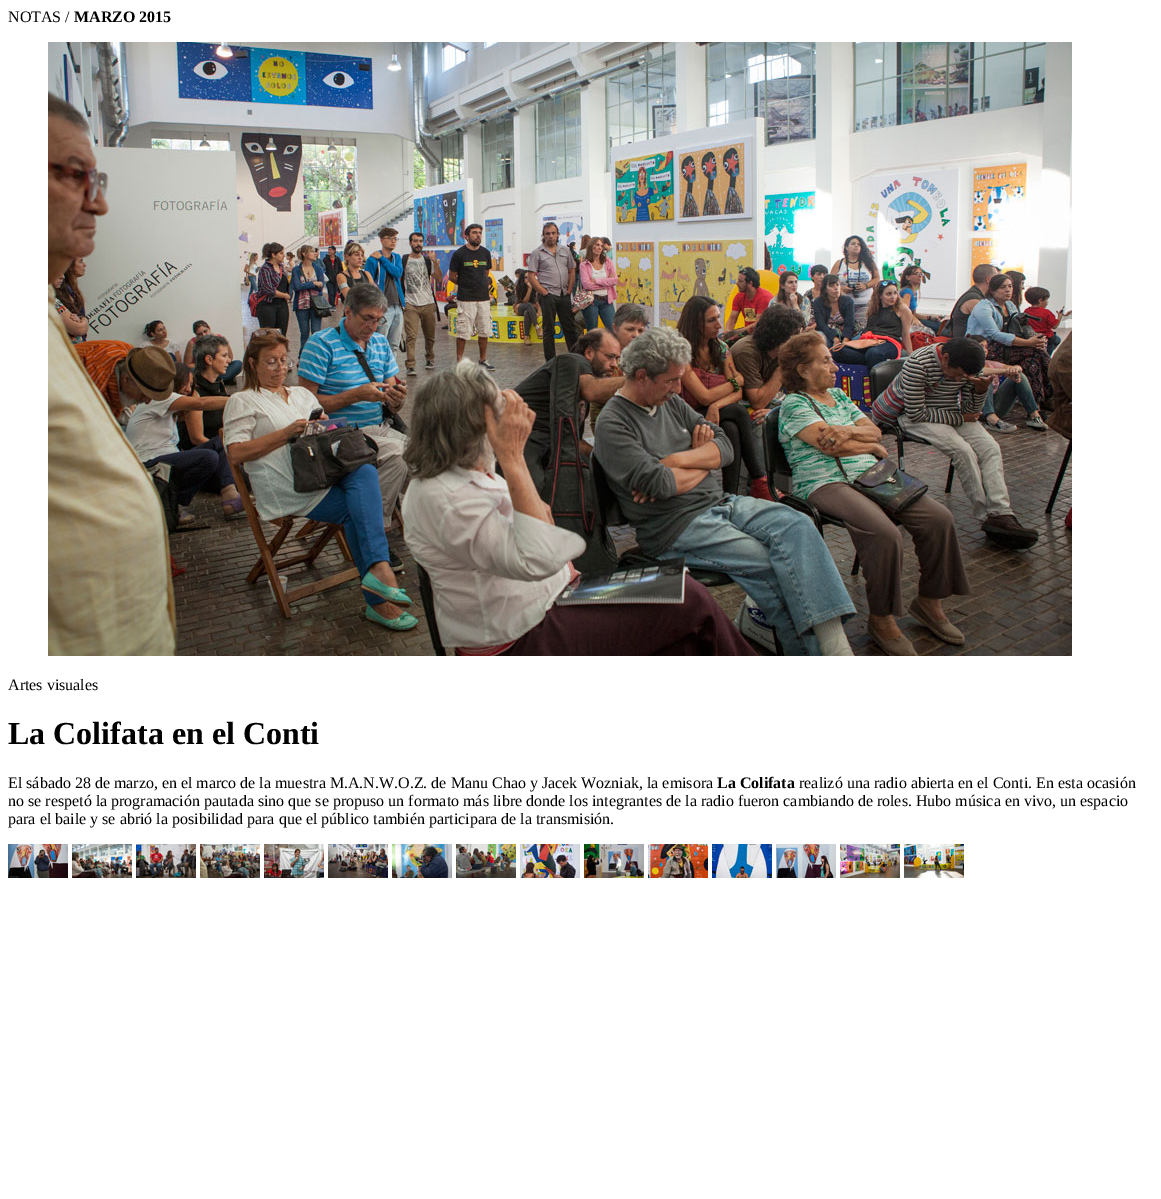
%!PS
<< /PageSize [1161 1199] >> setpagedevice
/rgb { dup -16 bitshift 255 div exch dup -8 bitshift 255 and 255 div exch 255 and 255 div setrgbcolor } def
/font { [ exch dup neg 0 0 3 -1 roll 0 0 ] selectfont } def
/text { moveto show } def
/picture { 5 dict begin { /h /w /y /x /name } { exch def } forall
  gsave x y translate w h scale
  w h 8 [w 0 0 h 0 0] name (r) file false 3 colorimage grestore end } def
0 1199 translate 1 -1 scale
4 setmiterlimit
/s1 { /LiberationSerif-Regular 16 font 16#000000 rgb } def
/s2 { /LiberationSerif-Bold 16 font 16#000000 rgb } def
/s3 { /LiberationSerif-Bold 32 font 16#000000 rgb } def
16#FFFFFF rgb
0 0 1161 1199 rectfill
s1
(NOTAS /) 8 22 text
s2
(MARZO 2015) 74 22 text
(pic1.raw) 48 42 1024 614 picture
s1
(Artes visuales) 8 690 text
s3
(La Colifata en el Conti) 8 744 text
s1
(El sábado 28 de marzo, en el marco de la muestra M.A.N.W.O.Z. de Manu Chao y Jacek Wozniak, la emisora) 8 788 text
s2
(La Colifata) 717 788 text
s1
(realizó una radio abierta en el Conti. En esta ocasión) 799 788 text
(no se respetó la programación pautada sino que se propuso un formato más libre donde los integrantes de la radio fueron cambiando de roles. Hubo música en vivo, un espacio) 8 806 text
(para el baile y se abrió la posibilidad para que el público también participara de la transmisión.) 8 824 text
(pic2.raw) 8 844 60 34 picture
(pic3.raw) 72 844 60 34 picture
(pic4.raw) 136 844 60 34 picture
(pic5.raw) 200 844 60 34 picture
(pic6.raw) 264 844 60 34 picture
(pic7.raw) 328 844 60 34 picture
(pic8.raw) 392 844 60 34 picture
(pic9.raw) 456 844 60 34 picture
(pic10.raw) 520 844 60 34 picture
(pic11.raw) 584 844 60 34 picture
(pic12.raw) 648 844 60 34 picture
(pic13.raw) 712 844 60 34 picture
(pic14.raw) 776 844 60 34 picture
(pic15.raw) 840 844 60 34 picture
(pic16.raw) 904 844 60 34 picture
showpage
